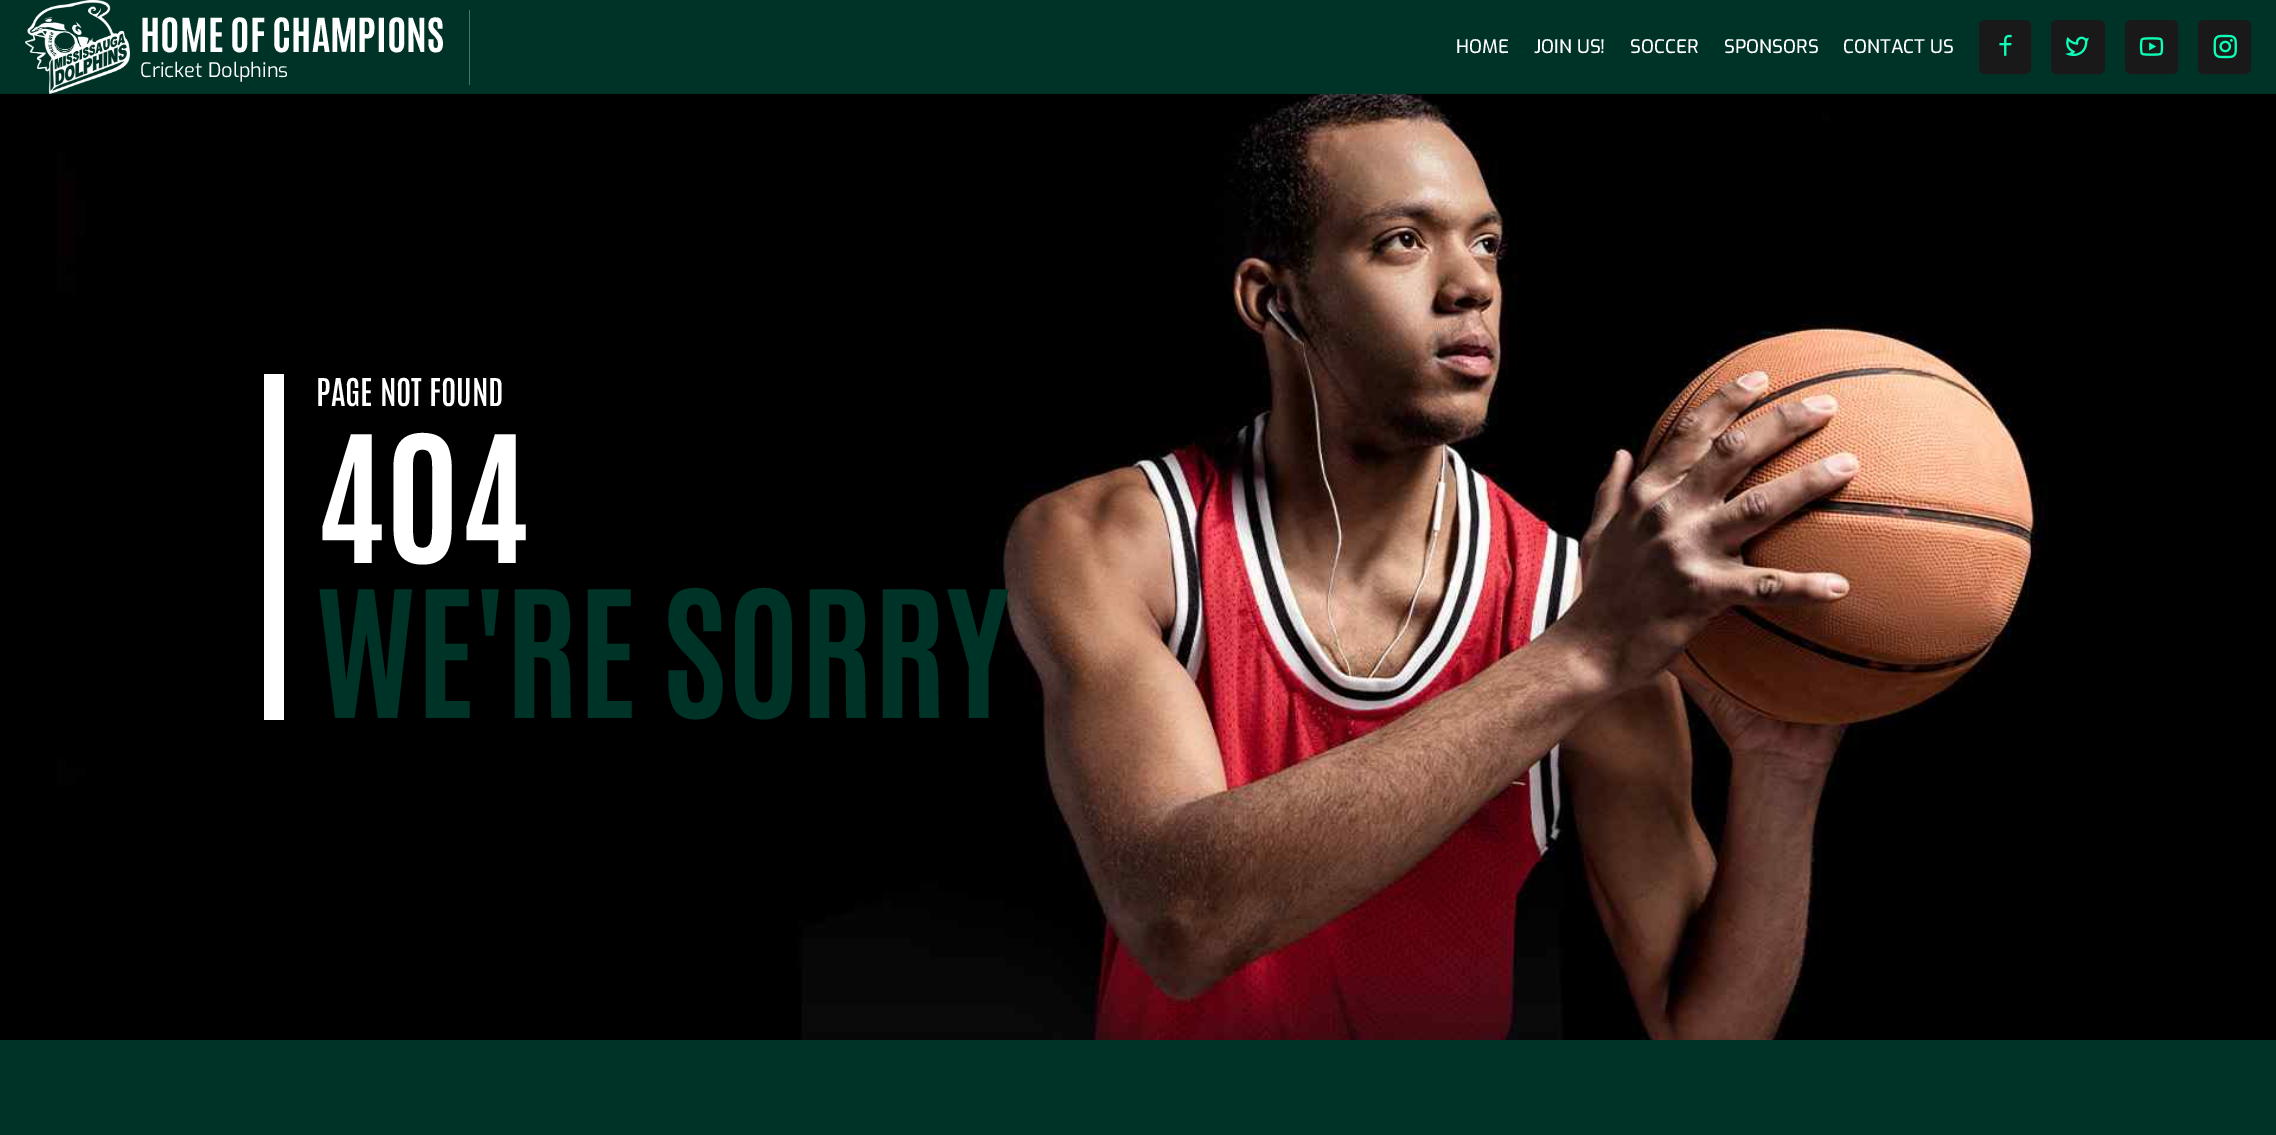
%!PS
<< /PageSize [2276 1135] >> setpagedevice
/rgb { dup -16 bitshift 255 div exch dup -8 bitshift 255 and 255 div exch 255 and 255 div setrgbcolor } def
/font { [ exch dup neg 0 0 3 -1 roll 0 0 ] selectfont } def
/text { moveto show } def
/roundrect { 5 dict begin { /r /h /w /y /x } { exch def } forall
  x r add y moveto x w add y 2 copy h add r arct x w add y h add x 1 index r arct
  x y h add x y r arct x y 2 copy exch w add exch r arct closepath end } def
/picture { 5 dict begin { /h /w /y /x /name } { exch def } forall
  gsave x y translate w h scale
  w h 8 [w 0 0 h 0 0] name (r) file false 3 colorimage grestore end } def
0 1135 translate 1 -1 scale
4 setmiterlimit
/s1 { /Antonio-Bold 40 font 16#FFFFFF rgb } def
/s2 { /Exo-Regular 20 font 16#FFFFFF rgb } def
/s3 { /Exo-Medium 18.75 font 16#FFFFFF rgb } def
/s4 { /Antonio-SemiBold 32.5 font 16#FFFFFF rgb } def
/s5 { /Antonio-Bold 150 font 16#FFFFFF rgb } def
/s6 { /Antonio-Bold 150 font 16#003327 rgb } def
16#003327 rgb
0 0 2276 1135 rectfill
(pic1.raw) 25 0 105 94 picture
s1
(HOME OF CHAMPIONS) 140 52 text
s2
(Cricket Dolphins) 140 77 text
16#4D7068 rgb
469 10 1 75 rectfill
s3
(HOME) 1456 53 text
(JOIN US!) 1534 53 text
(SOCCER) 1630 53 text
(SPONSORS) 1724 53 text
(CONTACT US) 1843 53 text
16#191919 rgb
1980.5 21.5 49 51 4.5 roundrect gsave fill grestore
3 setlinewidth
stroke
(pic2.raw) 1999 34 13 22 picture
2052.5 21.5 51 51 4.5 roundrect gsave fill grestore
stroke
(pic3.raw) 2065 36 24 21 picture
2126.5 21.5 50 51 4.5 roundrect gsave fill grestore
stroke
(pic4.raw) 2139 37 25 19 picture
2199.5 21.5 50 51 4.5 roundrect gsave fill grestore
stroke
(pic5.raw) 2213 34 24 25 picture
(pic6.raw) 0 94 2276 946 picture
16#FFFFFF rgb
264 374 20 346 rectfill
s4
(PAGE NOT FOUND) 316 406 text
s5
(404) 316 563 text
s6
(WE'RE SORRY) 316 718 text
showpage
